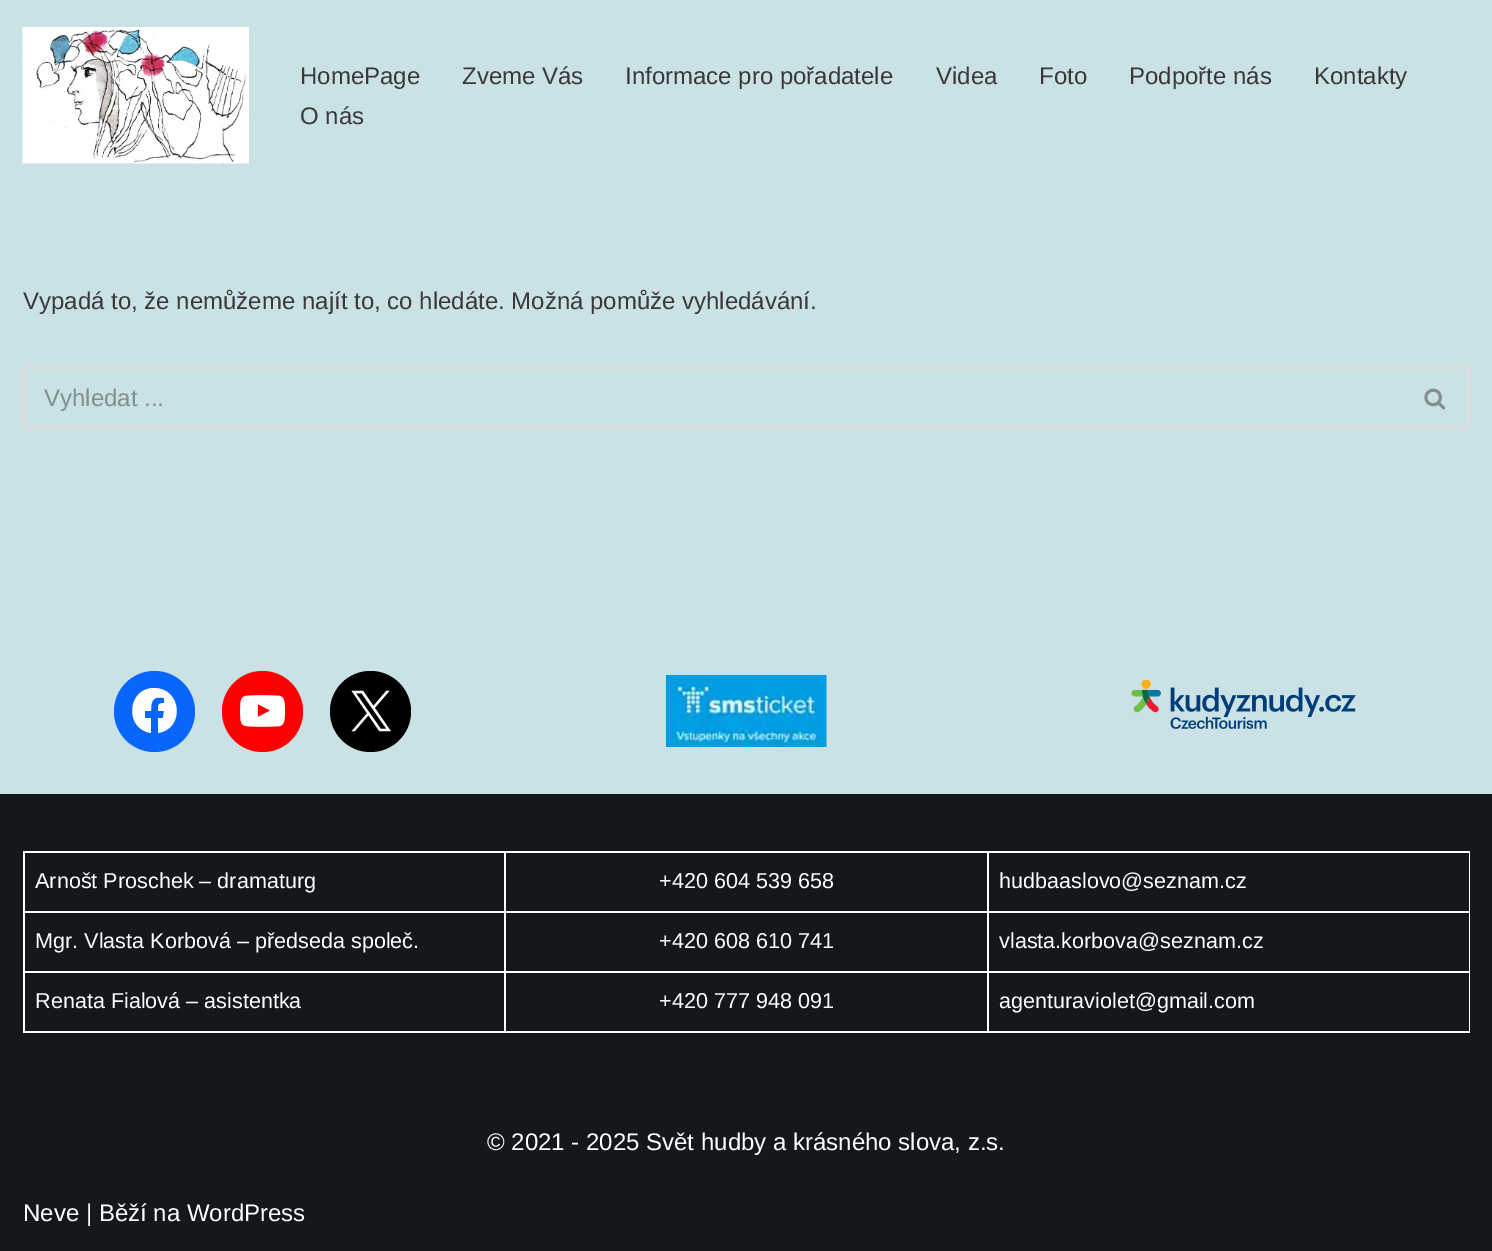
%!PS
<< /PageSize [1492 1251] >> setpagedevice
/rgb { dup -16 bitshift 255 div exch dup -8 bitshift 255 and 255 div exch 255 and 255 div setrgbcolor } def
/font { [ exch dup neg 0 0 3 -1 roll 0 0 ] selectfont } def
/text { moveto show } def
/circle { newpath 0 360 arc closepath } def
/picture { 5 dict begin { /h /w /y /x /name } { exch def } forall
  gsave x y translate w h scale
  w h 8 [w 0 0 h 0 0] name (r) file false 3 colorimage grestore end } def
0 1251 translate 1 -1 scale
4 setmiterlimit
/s1 { /LiberationSans-Regular 24 font 16#393939 rgb } def
/s2 { /LiberationSans-Regular 24 font 16#828E90 rgb } def
/s3 { /LiberationSans-Regular 21.6 font 16#FFFFFF rgb } def
/s4 { /LiberationSans-Regular 24 font 16#FFFFFF rgb } def
16#CAE2E6 rgb
0 0 1492 1251 rectfill
(pic1.raw) 22 27 227 137 picture
s1
(HomePage) 300 84 text
(Zveme Vás) 462 84 text
(Informace pro pořadatele) 625 84 text
(Videa) 936 84 text
(Foto) 1039 84 text
(Podpořte nás) 1129 84 text
(Kontakty) 1314 84 text
(O nás) 300 124 text
(Vypadá to, že nemůžeme najít to, co hledáte. Možná pomůže vyhledávání.) 23 309 text
16#DDDDDD rgb
27 366 moveto 1402 366 lineto 1402 429 lineto 27 429 lineto 25 429 22 427 22 424 curveto 22 370 lineto 22 368 25 366 27 366 curveto closepath 27 369 moveto 1402 369 lineto 1402 426 lineto 27 426 lineto 26 426 26 425 26 424 curveto 26 370 lineto 26 370 26 369 27 369 curveto closepath eofill
s2
(Vyhledat ...) 44 406 text
16#DDDDDD rgb
1402 366 moveto 1466 366 lineto 1468 366 1470 368 1470 370 curveto 1470 424 lineto 1470 427 1468 429 1466 429 curveto 1402 429 lineto closepath 1402 369 moveto 1466 369 lineto 1466 369 1467 370 1467 370 curveto 1467 424 lineto 1467 425 1466 426 1466 426 curveto 1402 426 lineto closepath eofill
(pic2.raw) 1424 388 22 22 picture
16#0866FF rgb
154.5 711.5 40.5 circle fill
16#FFFFFF rgb
154 688 moveto 127 688 124 729 151 733 curveto 151 718 lineto 145 718 lineto 145 711 lineto 151 711 lineto 151 700 153 696 164 698 curveto 164 703 lineto 158 703 158 705 158 711 curveto 164 711 lineto 163 718 lineto 158 718 lineto 158 733 lineto 185 729 182 688 154 688 curveto closepath fill
16#FF0000 rgb
262.5 711.5 40.5 circle fill
(pic3.raw) 240 695 45 32 picture
16#000000 rgb
370.5 711.5 40.5 circle fill
(pic4.raw) 351 690 40 42 picture
(pic5.raw) 666 675 161 72 picture
(pic6.raw) 1131 680 225 49 picture
16#14171C rgb
0 794 1492 457 rectfill
16#FFFFFF rgb
987 851 483 2 rectfill
987 911 483 2 rectfill
987 971 483 2 rectfill
1469 971 1 61 rectfill
987 1031 483 2 rectfill
987 971 2 61 rectfill
504 971 485 2 rectfill
987 911 2 61 rectfill
504 911 485 2 rectfill
987 851 2 61 rectfill
504 851 485 2 rectfill
504 1031 485 2 rectfill
504 971 2 61 rectfill
23 971 483 2 rectfill
504 911 2 61 rectfill
23 911 483 2 rectfill
504 851 2 61 rectfill
23 851 483 2 rectfill
23 1031 483 2 rectfill
23 971 2 61 rectfill
23 911 2 61 rectfill
23 851 2 61 rectfill
s3
(Arnošt Proschek – dramaturg) 35 888 text
(+420 604 539 658) 659 888 text
1469 911 1 61 rectfill
1469 851 1 61 rectfill
(hudbaaslovo@seznam.cz) 999 888 text
(Mgr. Vlasta Korbová – předseda společ.) 35 948 text
(+420 608 610 741) 659 948 text
(vlasta.korbova@seznam.cz) 999 948 text
(Renata Fialová – asistentka) 35 1008 text
(+420 777 948 091) 659 1008 text
(agenturaviolet@gmail.com) 999 1008 text
s4
(© 2021 - 2025 Svět hudby a krásného slova, z.s.) 487 1150 text
(Neve | Běží na WordPress) 23 1221 text
showpage
